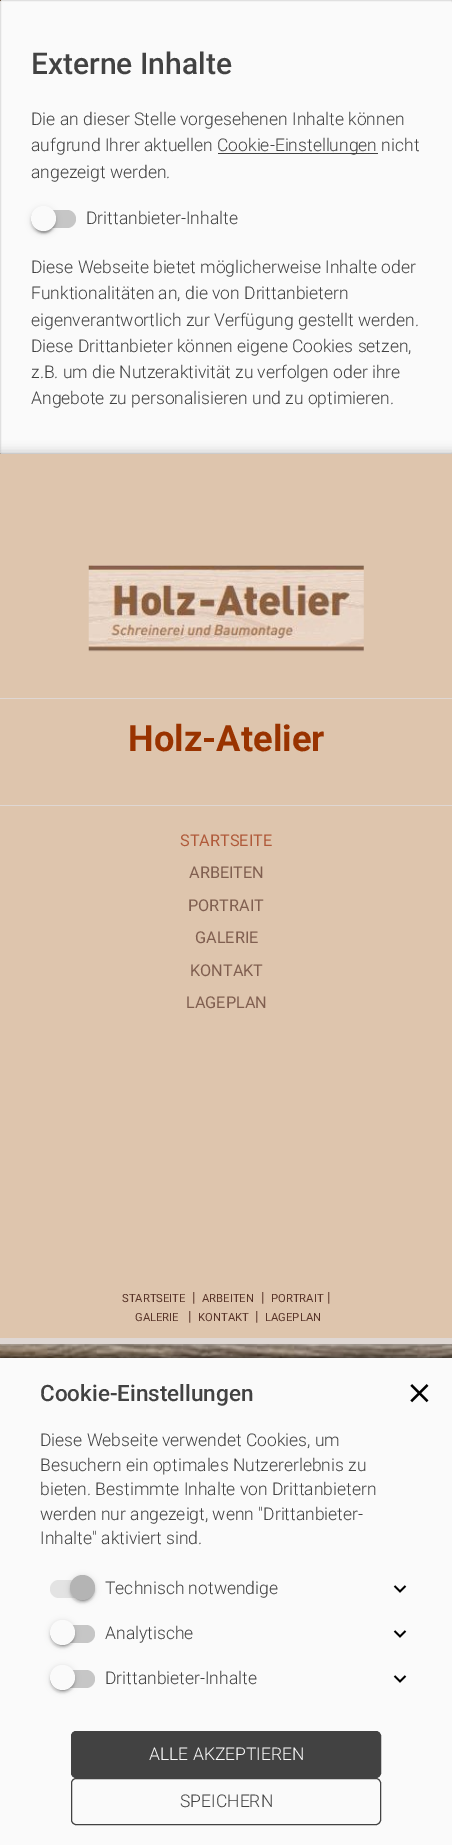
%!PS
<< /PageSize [452 1845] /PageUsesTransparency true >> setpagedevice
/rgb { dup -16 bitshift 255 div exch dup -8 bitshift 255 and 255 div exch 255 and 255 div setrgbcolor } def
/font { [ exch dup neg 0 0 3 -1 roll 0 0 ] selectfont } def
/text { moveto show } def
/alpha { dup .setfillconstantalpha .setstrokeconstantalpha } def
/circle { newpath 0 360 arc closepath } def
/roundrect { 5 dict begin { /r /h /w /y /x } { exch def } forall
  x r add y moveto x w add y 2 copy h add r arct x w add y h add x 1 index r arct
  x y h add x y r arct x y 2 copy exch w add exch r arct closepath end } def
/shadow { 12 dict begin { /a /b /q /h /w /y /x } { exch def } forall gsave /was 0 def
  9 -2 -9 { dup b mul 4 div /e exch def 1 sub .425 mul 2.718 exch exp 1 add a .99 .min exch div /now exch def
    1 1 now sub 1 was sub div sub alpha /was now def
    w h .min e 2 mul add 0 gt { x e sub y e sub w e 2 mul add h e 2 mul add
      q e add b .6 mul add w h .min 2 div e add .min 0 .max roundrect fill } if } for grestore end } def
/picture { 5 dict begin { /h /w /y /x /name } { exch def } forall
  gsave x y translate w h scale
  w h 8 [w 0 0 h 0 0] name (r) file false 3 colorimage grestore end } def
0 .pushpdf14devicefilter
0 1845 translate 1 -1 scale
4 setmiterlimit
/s1 { /Roboto-Medium 30 font 16#424242 rgb } def
/s2 { /Roboto-Light 17.5 font 16#424242 rgb } def
/s3 { /Roboto-Bold 36.25 font 16#993300 rgb } def
/s4 { /Roboto-Regular 16.25 font 16#B05A3A rgb } def
/s5 { /Roboto-Regular 16.25 font 16#805F50 rgb } def
/s6 { /Roboto-Regular 11.25 font 16#573328 rgb } def
/s7 { /Roboto-Regular 14 font 16#573328 rgb } def
/s8 { /Roboto-Medium 22.5 font 16#424242 rgb } def
/s9 { /Roboto-Light 17.5 font 16#FAFAFA rgb } def
16#FFFFFF rgb
0 0 452 1845 rectfill
(pic1.raw) 0 0 452 1358 picture
16#FAFAFA rgb
0.5 0.5 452 453 2 roundrect gsave fill grestore
16#E0E0E0 rgb
stroke
s1
(Externe Inhalte) 31 74 text
s2
(Die an dieser Stelle vorgesehenen Inhalte können) 31 125 text
(aufgrund Ihrer aktuellen) 31 151 text
218 153 160 1 rectfill
(Cookie-Einstellungen nicht) 217 151 text
(angezeigt werden.) 31 178 text
16#C6C6C6 rgb
31 210 45 18 9 roundrect fill
16#000000 rgb
31 208 25 25 12.5 3 0.12 shadow
31 209 25 25 12.5 1 0.14 shadow
34 213 20 20 10 0.5 0.2 shadow
16#FAFAFA rgb
43.5 218.5 12.5 circle fill
s2
(Drittanbieter-Inhalte) 86 224 text
(Diese Webseite bietet möglicherweise Inhalte oder) 31 273 text
(Funktionalitäten an, die von Drittanbietern) 31 299 text
(eigenverantwortlich zur Verfügung gestellt werden.) 31 326 text
(Diese Drittanbieter können eigene Cookies setzen,) 31 352 text
(z.B. um die Nutzeraktivität zu verfolgen oder ihre) 31 378 text
(Angebote zu personalisieren und zu optimieren.) 31 404 text
16#B5B5B5 rgb
0 454 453 890 0 6 1 shadow
16#DEC5AD rgb
0 454 452 884 rectfill
16#DFD7D3 rgb
0 1338 452 6 rectfill
(pic2.raw) 88 565 276 87 picture
0 698 452 1 rectfill
s3
(Holz-Atelier) 128 751 text
16#DFD7D3 rgb
0 805 452 1 rectfill
s4
(STARTSEITE) 180 846 text
s5
(ARBEITEN) 189 878 text
(PORTRAIT) 188 911 text
(GALERIE) 195 943 text
(KONTAKT) 190 976 text
(LAGEPLAN) 186 1008 text
s6
(STARTSEITE) 122 1302 text
s7
(|) 192 1302 text
s6
(ARBEITEN) 202 1302 text
s7
(|) 261 1302 text
s6
(PORTRAIT) 271 1302 text
s7
(|) 327 1302 text
s6
(GALERIE) 135 1321 text
s7
(|) 188 1321 text
s6
(KONTAKT) 198 1321 text
s7
(|) 255 1321 text
s6
(LAGEPLAN) 265 1321 text
16#000000 rgb
0 1356 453 488 0 3 0.55 shadow
16#FAFAFA rgb
0 1358 452 487 rectfill
s8
(Cookie-Einstellungen) 40 1401 text
(pic3.raw) 410 1384 19 19 picture
s2
(Diese Webseite verwendet Cookies, um) 40 1446 text
(Besuchern ein optimales Nutzererlebnis zu) 40 1471 text
(bieten. Bestimmte Inhalte von Drittanbietern) 40 1495 text
(werden nur angezeigt, wenn "Drittanbieter-) 40 1520 text
(Inhalte" aktiviert sind.) 40 1544 text
16#E3E3E3 rgb
50 1580 45 18 9 roundrect fill
16#000000 rgb
70 1576 25 25 12.5 3 0.12 shadow
70 1578 25 25 12.5 1 0.14 shadow
73 1581 20 20 10 0.5 0.2 shadow
16#B4B4B4 rgb
82.5 1587.5 12.5 circle fill
s2
(Technisch notwendige) 105 1594 text
(pic4.raw) 393 1585 14 8 picture
16#C6C6C6 rgb
50 1625 45 18 9 roundrect fill
16#000000 rgb
50 1621 25 25 12.5 3 0.12 shadow
50 1623 25 25 12.5 1 0.14 shadow
53 1626 20 20 10 0.5 0.2 shadow
16#FAFAFA rgb
62.5 1632.5 12.5 circle fill
s2
(Analytische) 105 1639 text
(pic4.raw) 393 1630 14 8 picture
16#C6C6C6 rgb
50 1670 45 18 9 roundrect fill
16#000000 rgb
50 1666 25 25 12.5 3 0.12 shadow
50 1668 25 25 12.5 1 0.14 shadow
53 1671 20 20 10 0.5 0.2 shadow
16#FAFAFA rgb
62.5 1677.5 12.5 circle fill
s2
(Drittanbieter-Inhalte) 105 1684 text
(pic4.raw) 393 1675 14 8 picture
71.5 1731.5 309 46 4.5 roundrect gsave fill grestore
stroke
s9
(ALLE AKZEPTIEREN) 149 1760 text
16#424242 rgb
71.5 1778.5 309 46 4.5 roundrect stroke
(SPEICHERN) 180 1807 text
.poppdf14devicefilter showpage
